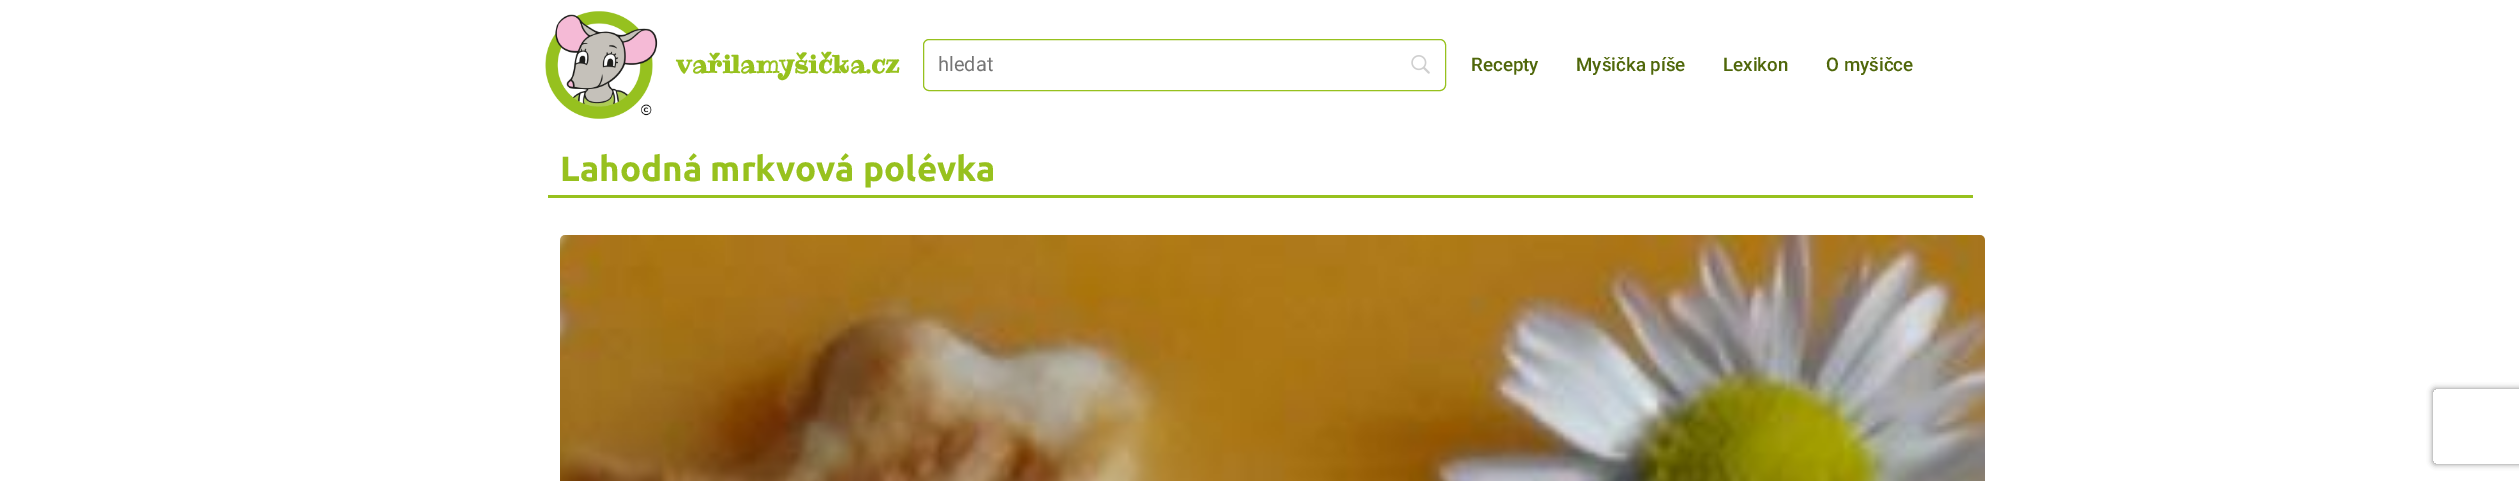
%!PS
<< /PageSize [2519 481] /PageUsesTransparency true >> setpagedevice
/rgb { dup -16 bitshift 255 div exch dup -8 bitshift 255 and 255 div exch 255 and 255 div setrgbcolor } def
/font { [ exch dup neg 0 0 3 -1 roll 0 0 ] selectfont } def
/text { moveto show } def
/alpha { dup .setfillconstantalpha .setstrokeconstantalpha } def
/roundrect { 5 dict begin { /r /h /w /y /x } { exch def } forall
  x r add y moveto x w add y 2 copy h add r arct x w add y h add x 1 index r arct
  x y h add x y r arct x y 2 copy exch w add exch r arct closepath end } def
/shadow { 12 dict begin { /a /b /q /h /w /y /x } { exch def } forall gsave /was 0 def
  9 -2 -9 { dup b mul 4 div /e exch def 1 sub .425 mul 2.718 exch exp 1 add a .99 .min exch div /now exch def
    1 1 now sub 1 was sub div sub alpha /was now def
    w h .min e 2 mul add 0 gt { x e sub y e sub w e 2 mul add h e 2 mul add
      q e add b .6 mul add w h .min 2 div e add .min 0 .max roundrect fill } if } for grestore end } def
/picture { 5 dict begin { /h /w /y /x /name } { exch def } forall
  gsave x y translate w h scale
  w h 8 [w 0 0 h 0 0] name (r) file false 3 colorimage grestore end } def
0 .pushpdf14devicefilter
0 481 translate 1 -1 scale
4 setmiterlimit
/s1 { /Ribeye-Bold 25 font 16#97C11E rgb } def
/s2 { /Roboto-Regular 20 font 16#757575 rgb } def
/s3 { /Roboto-Medium 18.75 font 16#4F670A rgb } def
/s4 { /Ubuntu-Bold 35 font 16#97C11E rgb } def
16#FFFFFF rgb
0 0 2519 481 rectfill
(pic1.raw) 545 11 113 108 picture
s1
(vařilamyšička.cz) 676 73 text
(pic2.raw) 1411 55 19 19 picture
923.5 39.5 522 51 5.5 roundrect stroke
s2
(hledat) 938 71 text
s3
(Recepty) 1471 71 text
(Myšička píše) 1576 71 text
(Lexikon) 1723 71 text
(O myšičce) 1826 71 text
16#97C11E rgb
548 195 1425 3 rectfill
s4
(Lahodná mrkvová polévka) 560 181 text
(pic3.raw) 560 235 1425 246 picture
gsave
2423 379 moveto 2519 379 lineto 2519 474 lineto 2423 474 lineto closepath 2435.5 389 moveto 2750.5 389 lineto 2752 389 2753 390 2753 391.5 curveto 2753 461.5 lineto 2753 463 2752 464 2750.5 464 curveto 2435.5 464 lineto 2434 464 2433 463 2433 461.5 curveto 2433 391.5 lineto 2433 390 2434 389 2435.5 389 curveto closepath eoclip newpath
16#808080 rgb
2433 389 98 75 2.5 3 1 shadow
grestore
.poppdf14devicefilter showpage
